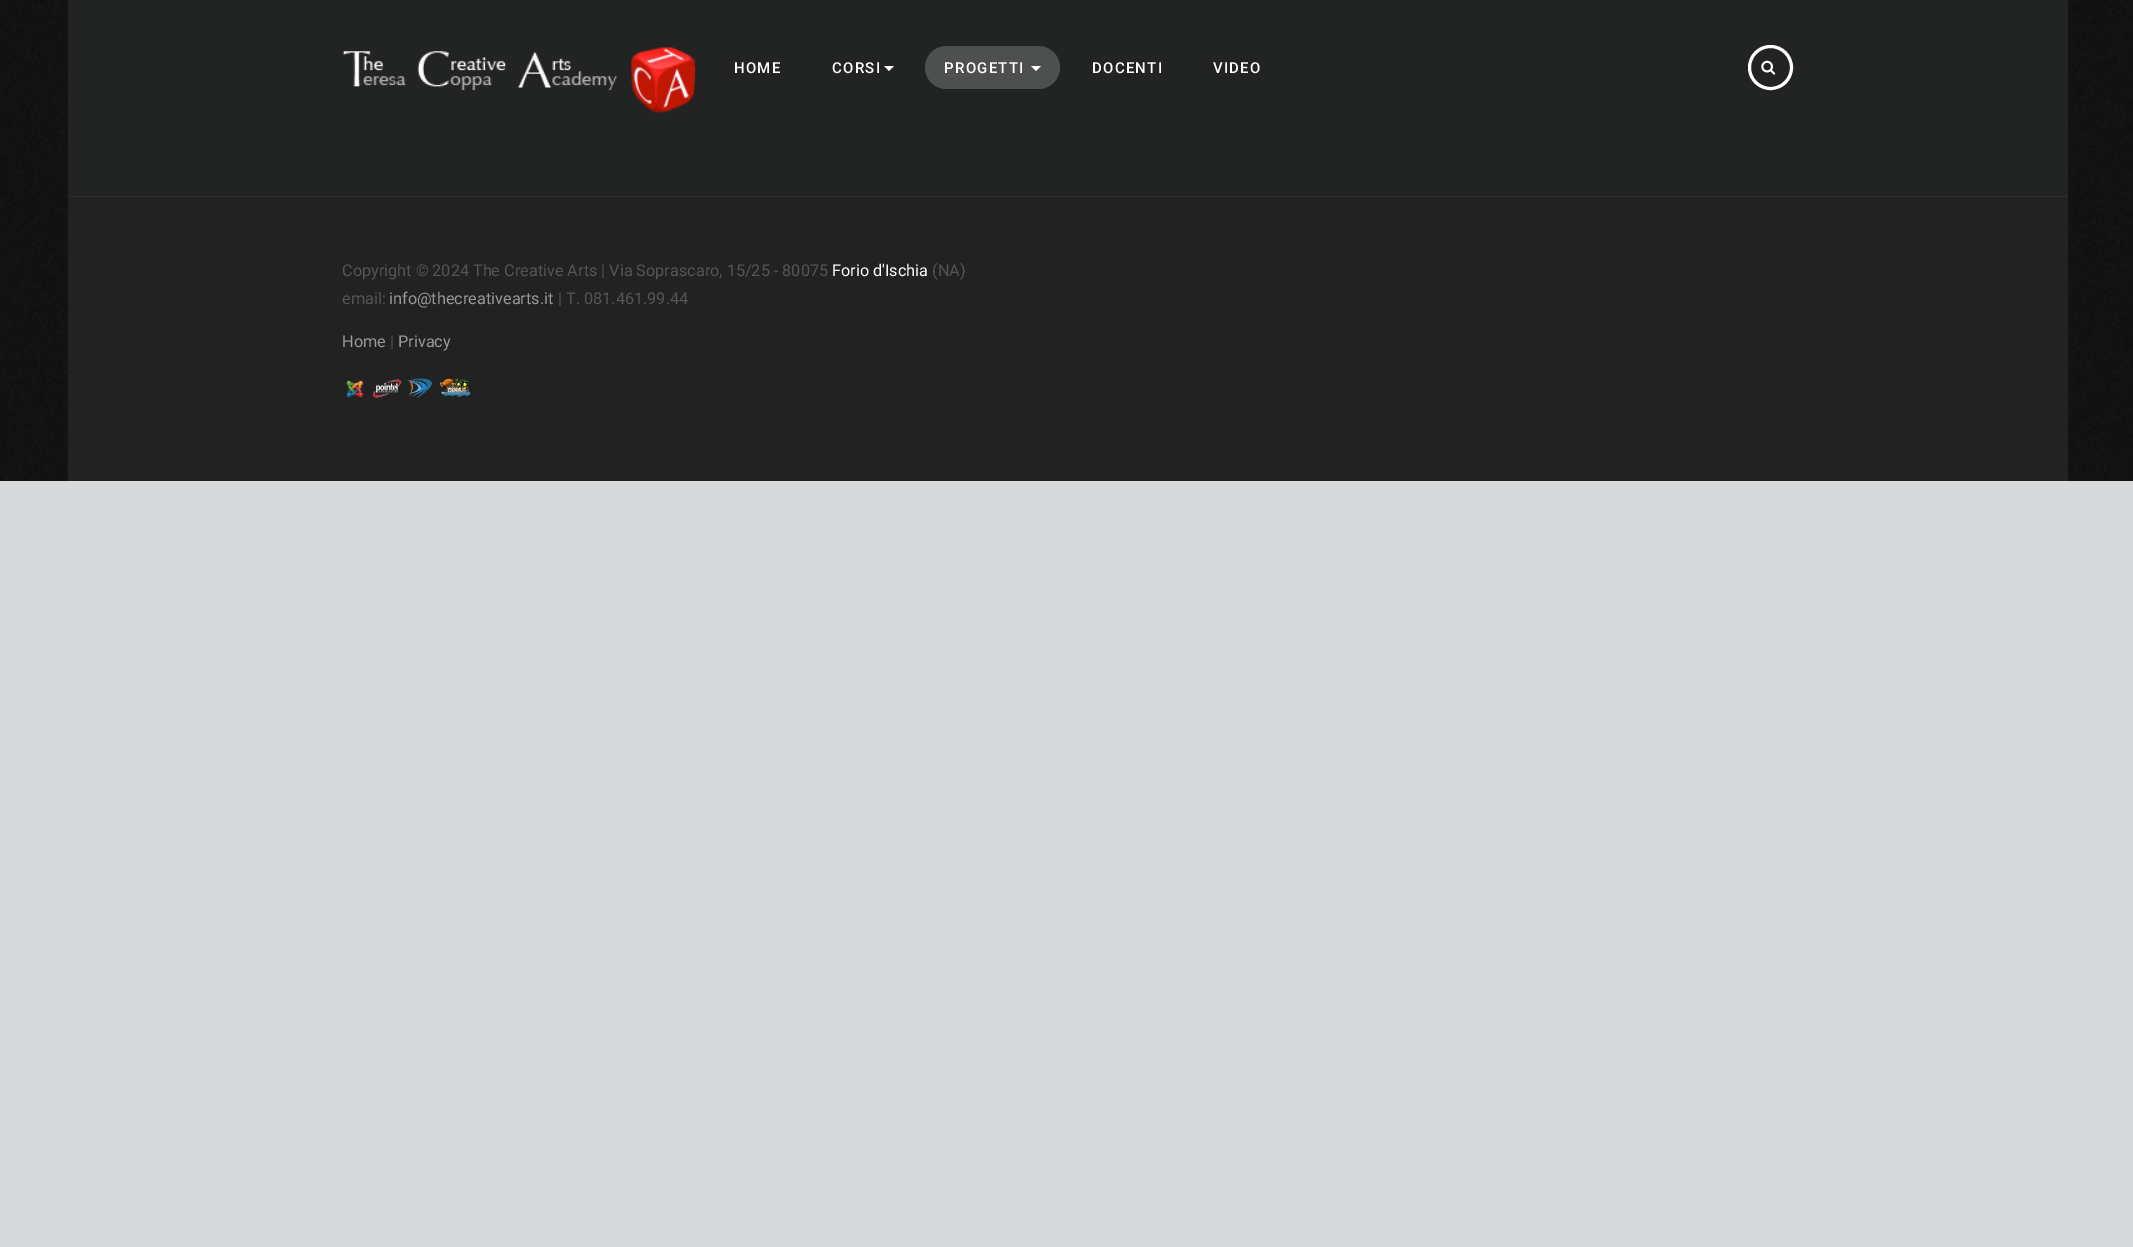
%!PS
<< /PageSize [2133 1247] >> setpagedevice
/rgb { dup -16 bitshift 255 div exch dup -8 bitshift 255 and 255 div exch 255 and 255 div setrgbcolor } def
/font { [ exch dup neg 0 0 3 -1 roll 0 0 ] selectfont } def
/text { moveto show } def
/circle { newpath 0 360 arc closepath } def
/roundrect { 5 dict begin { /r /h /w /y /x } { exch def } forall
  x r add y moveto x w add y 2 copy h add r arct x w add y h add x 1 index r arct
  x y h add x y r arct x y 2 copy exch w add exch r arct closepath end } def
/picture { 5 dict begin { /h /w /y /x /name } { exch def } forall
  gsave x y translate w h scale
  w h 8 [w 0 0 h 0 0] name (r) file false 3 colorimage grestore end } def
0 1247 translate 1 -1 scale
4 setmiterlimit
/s1 { /Roboto-Regular 16.25 font 16#555555 rgb } def
/s2 { /Roboto-Regular 16.25 font 16#FFFFFF rgb } def
/s3 { /Roboto-Regular 16.25 font 16#999999 rgb } def
16#D7D9DB rgb
0 0 2133 1247 rectfill
16#111111 rgb
0 0 2133 481 rectfill
(pic1.raw) 0 0 2133 481 picture
16#222323 rgb
68 0 2000 196 rectfill
(pic2.raw) 342 47 354 66 picture
/Roboto-Medium 15 font
16#FFFFFF rgb
734 73 moveto 1.25 0 (HOME) ashow
832 73 moveto 1.25 0 (CORSI) ashow
884 66 moveto 894 66 lineto 889 71 lineto closepath fill
16#4E4F4F rgb
925 46 135 43 21.5 roundrect fill
16#FFFFFF rgb
944 73 moveto 1.25 0 (PROGETTI) ashow
1031 66 moveto 1041 66 lineto 1036 71 lineto closepath fill
1092 73 moveto 1.25 0 (DOCENTI) ashow
1213 73 moveto 1.25 0 (VIDEO) ashow
3 setlinewidth
1770.5 67.5 21 circle stroke
(pic3.raw) 1761 60 15 15 picture
16#222222 rgb
68 197 2000 284 rectfill
16#2F2F2F rgb
68 196 2000 1 rectfill
s1
(Copyright © 2024 The Creative Arts | Via Soprascaro, 15/25 - 80075) 342 276 text
s2
(Forio d'Ischia) 832 276 text
s1
(\(NA\)) 932 276 text
(email:) 342 304 text
s3
(info@thecreativearts.it) 389 304 text
s1
(| T. 081.461.99.44) 558 304 text
s3
(Home) 342 347 text
s1
(|) 390 347 text
s3
(Privacy) 398 347 text
(pic4.raw) 346 380 18 18 picture
(pic5.raw) 372 379 30 19 picture
(pic6.raw) 407 378 25 21 picture
(pic7.raw) 439 378 34 20 picture
showpage
